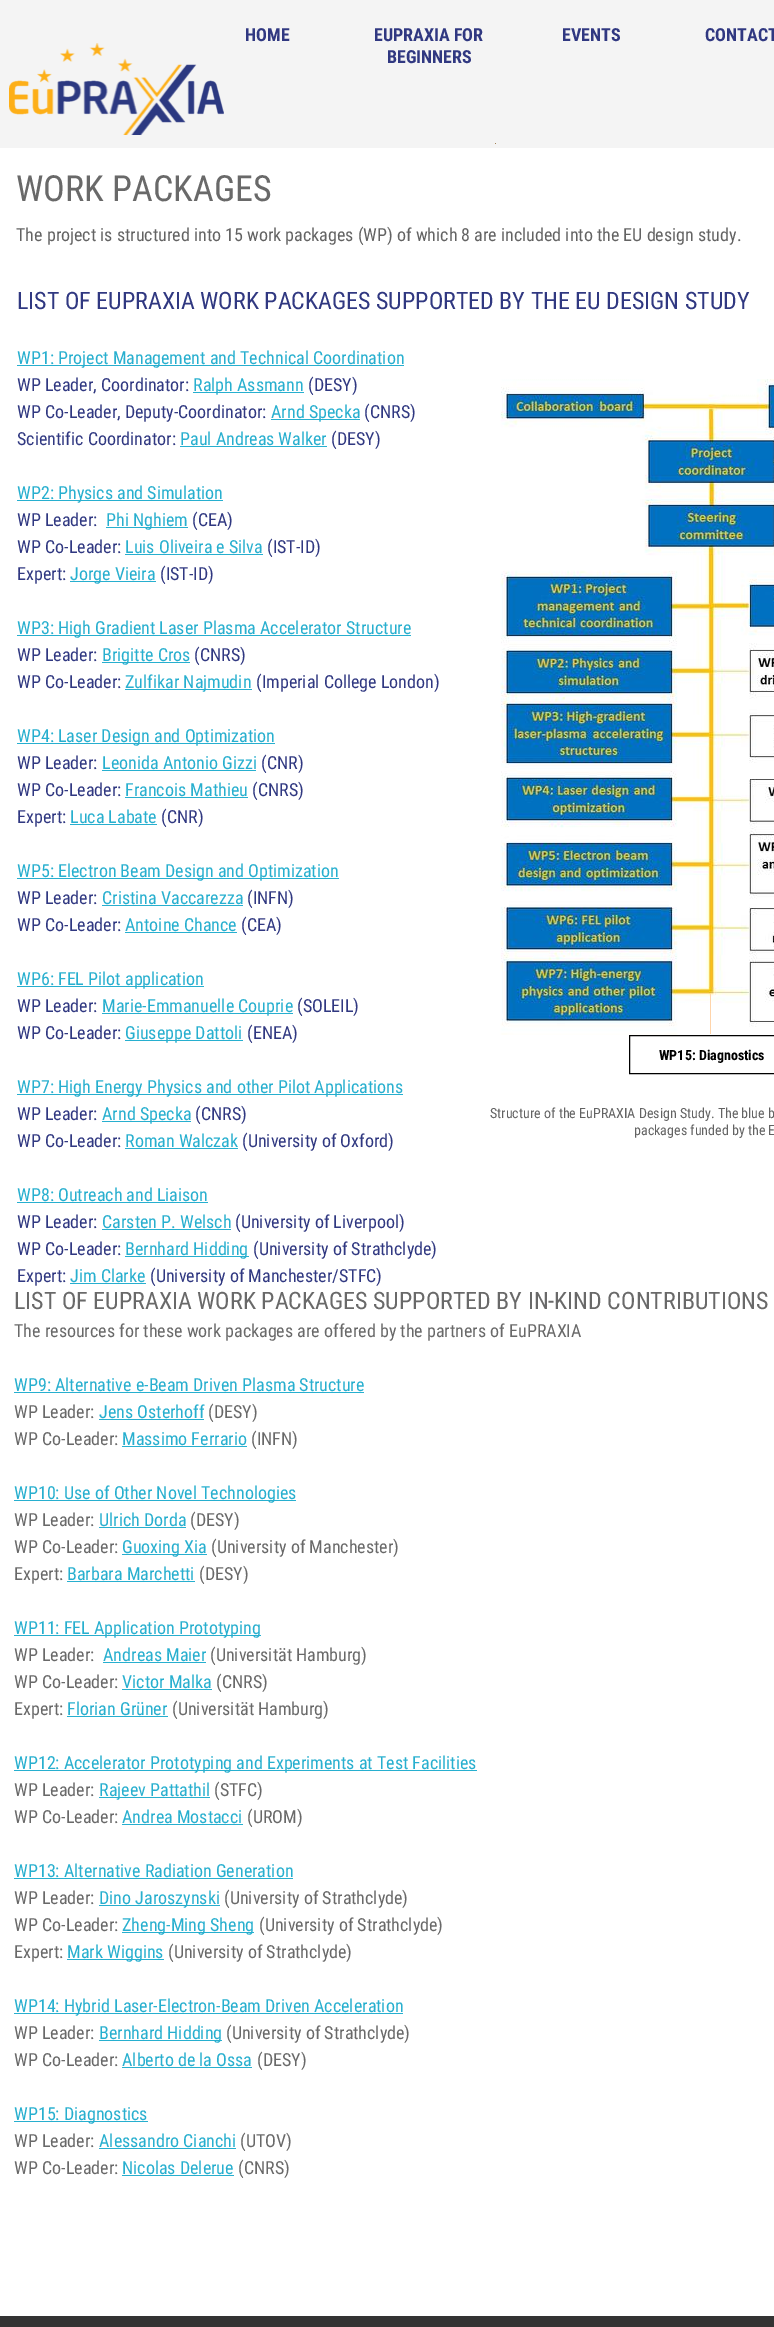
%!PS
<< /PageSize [774 2327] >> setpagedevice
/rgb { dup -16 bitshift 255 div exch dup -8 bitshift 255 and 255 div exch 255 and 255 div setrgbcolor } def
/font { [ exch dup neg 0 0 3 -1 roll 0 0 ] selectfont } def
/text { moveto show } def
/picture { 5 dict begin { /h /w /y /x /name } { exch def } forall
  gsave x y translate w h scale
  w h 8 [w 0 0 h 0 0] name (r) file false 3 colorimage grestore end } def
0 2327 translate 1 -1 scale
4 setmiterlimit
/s1 { /RobotoCondensed-Bold 18 font 16#303881 rgb } def
/s2 { /RobotoCondensed-Regular 36 font 16#696969 rgb } def
/s3 { /RobotoCondensed-Regular 18 font 16#636363 rgb } def
/s4 { /RobotoCondensed-Regular 24 font 16#303881 rgb } def
/s5 { /RobotoCondensed-Regular 18 font 16#27AFCF rgb } def
/s6 { /RobotoCondensed-Regular 18 font 16#303881 rgb } def
/s7 { /RobotoCondensed-Bold 14 font 16#000000 rgb } def
/s8 { /RobotoCondensed-Regular 14 font 16#636363 rgb } def
/s9 { /RobotoCondensed-Regular 24 font 16#696969 rgb } def
/s10 { /RobotoCondensed-Regular 18 font 16#696969 rgb } def
16#FFFFFF rgb
0 0 774 2327 rectfill
16#F4F4F4 rgb
0 0 774 148 rectfill
(pic1.raw) 9 43 215 92 picture
s1
(HOME) 245 41 text
(EUPRAXIA FOR) 374 41 text
(BEGINNERS) 387 63 text
(EVENTS) 562 41 text
(CONTACT) 705 41 text
16#A38154 rgb
495 143 1 1 rectfill
s2
(WORK PACKAGES) 16 201 text
s3
(The project is structured into 15 work packages \(WP\) of which 8 are included into the EU design study.) 16 241 text
s4
(LIST OF EUPRAXIA WORK PACKAGES SUPPORTED BY THE EU DESIGN STUDY) 17 309 text
16#27AFCF rgb
17 365 387 1 rectfill
s5
(WP1: Project Management and Technical Coordination) 17 364 text
s6
(WP Leader, Coordinator:) 17 391 text
16#27AFCF rgb
193 392 111 1 rectfill
(Ralph Assmann) 193 391 text
s6
(\(DESY\)) 308 391 text
(WP Co-Leader, Deputy-Coordinator:) 17 418 text
16#27AFCF rgb
271 419 89 1 rectfill
(Arnd Specka) 271 418 text
s6
(\(CNRS\)) 364 418 text
(Scientific Coordinator:) 17 445 text
s5
(Paul Andreas Walker) 180 445 text
180 446 147 1 rectfill
s6
(\(DESY\)) 331 445 text
16#27AFCF rgb
17 500 206 1 rectfill
(WP2: Physics and Simulation) 17 499 text
s6
(WP Leader:) 17 526 text
16#27AFCF rgb
106 527 82 1 rectfill
(Phi Nghiem) 106 526 text
s6
(\(CEA\)) 192 526 text
(WP Co-Leader:) 17 553 text
s5
(Luis Oliveira e Silva) 125 553 text
125 554 138 1 rectfill
s6
(\(IST-ID\)) 267 553 text
(Expert:) 17 580 text
16#27AFCF rgb
70 581 86 1 rectfill
(Jorge Vieira) 70 580 text
s6
(\(IST-ID\)) 160 580 text
16#27AFCF rgb
17 635 394 1 rectfill
(WP3: High Gradient Laser Plasma Accelerator Structure) 17 634 text
s6
(WP Leader:) 17 661 text
16#27AFCF rgb
102 662 88 1 rectfill
(Brigitte Cros) 102 661 text
s6
(\(CNRS\)) 194 661 text
(WP Co-Leader:) 17 688 text
16#27AFCF rgb
125 689 127 1 rectfill
(Zulfikar Najmudin) 125 688 text
s6
(\(Imperial College London\)) 256 688 text
16#27AFCF rgb
17 743 258 1 rectfill
(WP4: Laser Design and Optimization) 17 742 text
s6
(WP Leader:) 17 769 text
s5
(Leonida Antonio Gizzi) 102 769 text
102 770 154 1 rectfill
s6
(\(CNR\)) 261 769 text
(WP Co-Leader:) 17 796 text
s5
(Francois Mathieu) 125 796 text
125 797 123 1 rectfill
s6
(\(CNRS\)) 252 796 text
(Expert:) 17 823 text
16#27AFCF rgb
70 824 87 1 rectfill
(Luca Labate) 70 823 text
s6
(\(CNR\)) 161 823 text
16#27AFCF rgb
17 878 322 1 rectfill
(WP5: Electron Beam Design and Optimization) 17 877 text
s6
(WP Leader:) 17 904 text
s5
(Cristina Vaccarezza) 102 904 text
102 905 141 1 rectfill
s6
(\(INFN\)) 247 904 text
(WP Co-Leader:) 17 931 text
s5
(Antoine Chance) 125 931 text
125 932 112 1 rectfill
s6
(\(CEA\)) 241 931 text
16#27AFCF rgb
17 986 187 1 rectfill
(WP6: FEL Pilot application) 17 985 text
s6
(WP Leader:) 17 1012 text
16#27AFCF rgb
102 1013 191 1 rectfill
(Marie-Emmanuelle Couprie) 102 1012 text
s6
(\(SOLEIL\)) 297 1012 text
(WP Co-Leader:) 17 1039 text
16#27AFCF rgb
125 1040 118 1 rectfill
(Giuseppe Dattoli) 125 1039 text
s6
(\(ENEA\)) 247 1039 text
16#27AFCF rgb
17 1094 386 1 rectfill
(WP7: High Energy Physics and other Pilot Applications) 17 1093 text
s6
(WP Leader:) 17 1120 text
16#27AFCF rgb
102 1121 89 1 rectfill
(Arnd Specka) 102 1120 text
s6
(\(CNRS\)) 195 1120 text
(WP Co-Leader:) 17 1147 text
s5
(Roman Walczak) 125 1147 text
125 1148 113 1 rectfill
s6
(\(University of Oxford\)) 242 1147 text
s5
(WP8: Outreach and Liaison) 17 1201 text
17 1202 191 1 rectfill
s6
(WP Leader:) 17 1228 text
s5
(Carsten P. Welsch) 102 1228 text
102 1229 129 1 rectfill
s6
(\(University of Liverpool\)) 235 1228 text
(WP Co-Leader:) 17 1255 text
16#27AFCF rgb
125 1256 124 1 rectfill
(Bernhard Hidding) 125 1255 text
s6
(\(University of Strathclyde\)) 253 1255 text
(Expert:) 17 1282 text
16#27AFCF rgb
70 1283 76 1 rectfill
(Jim Clarke) 70 1282 text
s6
(\(University of Manchester/STFC\)) 150 1282 text
(pic2.raw) 500 379 274 656 picture
16#FFD4AA rgb
710 994 1 40 rectfill
16#000000 rgb
629.5 1035.5 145 38 rectstroke
s7
(WP15: Diagnostics) 659 1060 text
s8
(Structure of the EuPRAXIA Design Study. The blue b) 490 1118 text
(packages funded by the E) 634 1135 text
s9
(LIST OF EUPRAXIA WORK PACKAGES SUPPORTED BY IN-KIND CONTRIBUTIONS) 14 1309 text
s10
(The resources for these work packages are offered by the partners of EuPRAXIA) 14 1337 text
s5
(WP9: Alternative e-Beam Driven Plasma Structure) 14 1391 text
14 1392 350 1 rectfill
s10
(WP Leader:) 14 1418 text
s5
(Jens Osterhoff) 99 1418 text
99 1419 105 1 rectfill
s10
(\(DESY\)) 208 1418 text
(WP Co-Leader:) 14 1445 text
s5
(Massimo Ferrario) 122 1445 text
122 1446 125 1 rectfill
s10
(\(INFN\)) 251 1445 text
16#27AFCF rgb
14 1500 282 1 rectfill
(WP10: Use of Other Novel Technologies) 14 1499 text
s10
(WP Leader:) 14 1526 text
s5
(Ulrich Dorda) 99 1526 text
99 1527 87 1 rectfill
s10
(\(DESY\)) 190 1526 text
(WP Co-Leader:) 14 1553 text
16#27AFCF rgb
122 1554 85 1 rectfill
(Guoxing Xia) 122 1553 text
s10
(\(University of Manchester\)) 211 1553 text
(Expert:) 14 1580 text
16#27AFCF rgb
67 1581 128 1 rectfill
(Barbara Marchetti) 67 1580 text
s10
(\(DESY\)) 199 1580 text
16#27AFCF rgb
14 1635 247 1 rectfill
(WP11: FEL Application Prototyping) 14 1634 text
s10
(WP Leader:) 14 1661 text
s5
(Andreas Maier) 103 1661 text
103 1662 103 1 rectfill
s10
(\(Universität Hamburg\)) 210 1661 text
(WP Co-Leader:) 14 1688 text
s5
(Victor Malka) 122 1688 text
122 1689 90 1 rectfill
s10
(\(CNRS\)) 216 1688 text
(Expert:) 14 1715 text
16#27AFCF rgb
67 1716 101 1 rectfill
(Florian Grüner) 67 1715 text
s10
(\(Universität Hamburg\)) 172 1715 text
16#27AFCF rgb
14 1770 463 1 rectfill
(WP12: Accelerator Prototyping and Experiments at Test Facilities) 14 1769 text
s10
(WP Leader:) 14 1796 text
16#27AFCF rgb
99 1797 111 1 rectfill
(Rajeev Pattathil) 99 1796 text
s10
(\(STFC\)) 214 1796 text
(WP Co-Leader:) 14 1823 text
s5
(Andrea Mostacci) 122 1823 text
122 1824 121 1 rectfill
s10
(\(UROM\)) 247 1823 text
s5
(WP13: Alternative Radiation Generation) 14 1877 text
14 1878 279 1 rectfill
s10
(WP Leader:) 14 1904 text
16#27AFCF rgb
99 1905 121 1 rectfill
(Dino Jaroszynski) 99 1904 text
s10
(\(University of Strathclyde\)) 224 1904 text
(WP Co-Leader:) 14 1931 text
16#27AFCF rgb
122 1932 132 1 rectfill
(Zheng-Ming Sheng) 122 1931 text
s10
(\(University of Strathclyde\)) 259 1931 text
(Expert:) 14 1958 text
16#27AFCF rgb
67 1959 97 1 rectfill
(Mark Wiggins) 67 1958 text
s10
(\(University of Strathclyde\)) 168 1958 text
16#27AFCF rgb
14 2013 389 1 rectfill
(WP14: Hybrid Laser-Electron-Beam Driven Acceleration) 14 2012 text
s10
(WP Leader:) 14 2039 text
16#27AFCF rgb
99 2040 123 1 rectfill
(Bernhard Hidding) 99 2039 text
s10
(\(University of Strathclyde\)) 226 2039 text
(WP Co-Leader:) 14 2066 text
s5
(Alberto de la Ossa) 122 2066 text
122 2067 130 1 rectfill
s10
(\(DESY\)) 257 2066 text
16#27AFCF rgb
14 2121 134 1 rectfill
(WP15: Diagnostics) 14 2120 text
s10
(WP Leader:) 14 2147 text
s5
(Alessandro Cianchi) 99 2147 text
99 2148 137 1 rectfill
s10
(\(UTOV\)) 240 2147 text
(WP Co-Leader:) 14 2174 text
s5
(Nicolas Delerue) 122 2174 text
122 2175 112 1 rectfill
s10
(\(CNRS\)) 238 2174 text
16#333333 rgb
0 2316 774 11 rectfill
showpage
